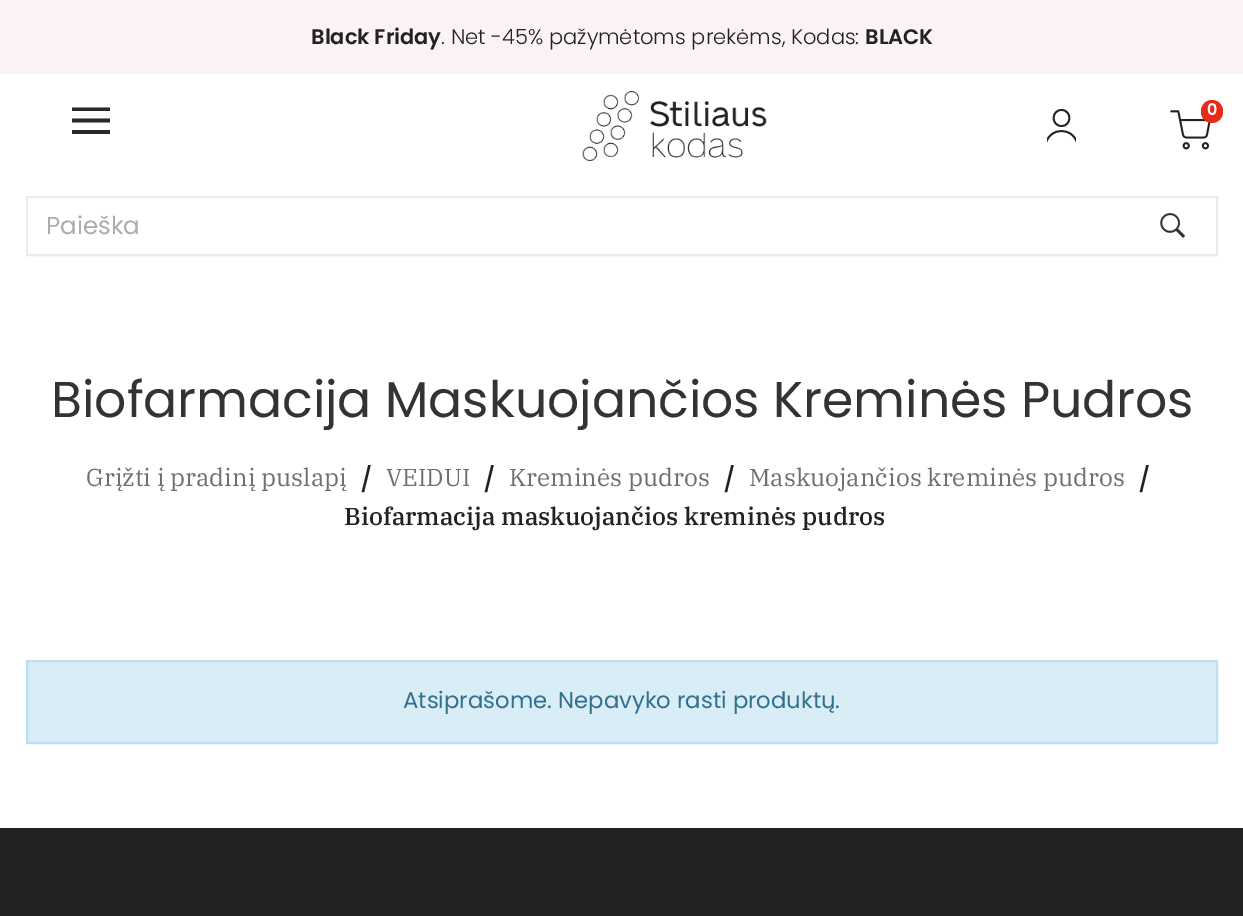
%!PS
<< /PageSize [1243 916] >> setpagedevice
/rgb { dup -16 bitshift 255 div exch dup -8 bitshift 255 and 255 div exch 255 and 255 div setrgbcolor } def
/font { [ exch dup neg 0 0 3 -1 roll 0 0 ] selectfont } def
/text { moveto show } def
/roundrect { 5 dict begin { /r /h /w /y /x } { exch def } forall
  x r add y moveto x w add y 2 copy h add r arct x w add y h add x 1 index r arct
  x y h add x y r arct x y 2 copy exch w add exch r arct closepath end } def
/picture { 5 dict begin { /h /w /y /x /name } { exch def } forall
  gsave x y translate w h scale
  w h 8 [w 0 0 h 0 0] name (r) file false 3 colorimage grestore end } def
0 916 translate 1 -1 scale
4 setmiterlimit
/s1 { /Poppins-SemiBold 21 font 16#222222 rgb } def
/s2 { /Poppins-Light 21 font 16#222222 rgb } def
/s3 { /Poppins-SemiBold 16 font 16#FFFFFF rgb } def
/s4 { /Poppins-Regular 24.5 font 16#ACACAC rgb } def
/s5 { /Poppins-Regular 50.4 font 16#333333 rgb } def
/s6 { /IBMPlexSerif-Regular 24.5 font 16#707070 rgb } def
/s7 { /Poppins-Medium 24.5 font 16#222222 rgb } def
/s8 { /IBMPlexSerif-Medium 24.5 font 16#222222 rgb } def
/s9 { /Poppins-Regular 22.75 font 16#31708F rgb } def
16#FFFFFF rgb
0 0 1243 916 rectfill
16#FBF2F4 rgb
0 0 1243 74 rectfill
s1
(Black Friday) 311 44 text
s2
(. Net -45% pažymėtoms prekėms, Kodas:) 441 44 text
s1
(BLACK) 865 44 text
16#292929 rgb
72 122.5 moveto 72 118.5 lineto 110 118.5 lineto 110 122.5 lineto closepath 72 111 moveto 72 107.5 lineto 110 107.5 lineto 110 111 lineto closepath 72 134 moveto 72 130 lineto 110 130 lineto 110 134 lineto closepath fill
(pic1.raw) 582 91 185 70 picture
16#222222 rgb
1.8 setlinewidth
1 setlinecap
1 setlinejoin
1061.5 126 moveto 1072 126 1072 110 1061.5 110 curveto 1051 110 1051 126 1061.5 126 curveto closepath stroke
gsave
1047 109 29 35 rectclip
1076.5 141.5 moveto 1072 127.5 1051 127.5 1046.5 141.5 curveto stroke
grestore
(pic2.raw) 1170 110 41 40 picture
16#E62B19 rgb
1201 100 22 23 11 roundrect fill
s3
(0) 1207 115 text
16#EBEBEB rgb
2 setlinewidth
0 setlinecap
0 setlinejoin
27 197 1190 58 rectstroke
s4
(Paieška) 46 234 text
(pic3.raw) 1160 213 26 25 picture
s5
(Biofarmacija Maskuojančios Kreminės Pudros) 51 417 text
s6
(Grįžti į pradinį puslapį) 86 486 text
s7
(/) 360 488 text
s6
(VEIDUI) 386 486 text
s7
(/) 483 488 text
s6
(Kreminės pudros) 509 486 text
s7
(/) 723 488 text
s6
(Maskuojančios kreminės pudros) 749 486 text
s7
(/) 1138 488 text
s8
(Biofarmacija maskuojančios kreminės pudros) 344 525 text
16#D9EDF7 rgb
27 661 moveto 1217 661 lineto 1217 743 lineto 27 743 lineto closepath gsave fill grestore
16#BCDFF1 rgb
stroke
s9
(Atsiprašome. Nepavyko rasti produktų.) 403 708 text
16#222222 rgb
0 828 1243 88 rectfill
showpage
